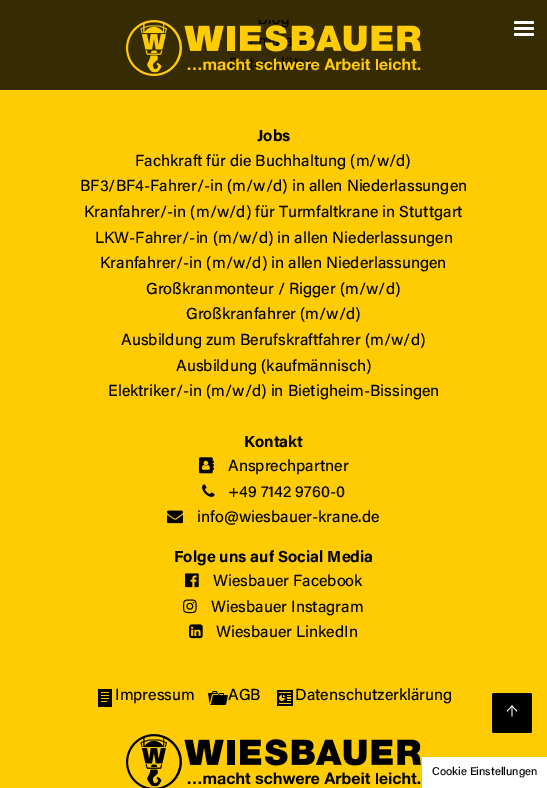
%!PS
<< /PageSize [547 788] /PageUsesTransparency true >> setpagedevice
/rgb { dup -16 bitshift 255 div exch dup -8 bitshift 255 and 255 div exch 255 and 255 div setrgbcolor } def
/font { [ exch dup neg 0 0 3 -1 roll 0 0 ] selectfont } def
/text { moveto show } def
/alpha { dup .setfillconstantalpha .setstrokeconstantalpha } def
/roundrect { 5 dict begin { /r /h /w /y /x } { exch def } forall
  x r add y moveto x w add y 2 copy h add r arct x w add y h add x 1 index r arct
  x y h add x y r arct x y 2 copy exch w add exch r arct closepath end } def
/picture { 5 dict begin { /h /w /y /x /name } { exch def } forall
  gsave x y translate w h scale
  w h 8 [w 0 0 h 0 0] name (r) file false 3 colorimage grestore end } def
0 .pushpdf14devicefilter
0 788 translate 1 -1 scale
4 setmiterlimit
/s1 { /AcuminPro-Bold 16 font 16#000000 rgb } def
/s2 { /AcuminPro-Medium 16 font 16#000000 rgb } def
/s3 { /AcuminPro-Medium 14 font 16#FFFFFF rgb } def
/s4 { /AcuminPro-Medium 11.25 font 16#000000 rgb } def
16#FFCC03 rgb
0 0 547 788 rectfill
0.79 alpha
16#000000 rgb
0 0 547 90 rectfill
1 alpha
16#FFFFFF rgb
514 21 20 3 1.5 roundrect fill
514 27 20 3 1.5 roundrect fill
514 33 20 3 1.5 roundrect fill
(pic1.raw) 126 20 295 56 picture
s1
(Jobs) 257 141 text
s2
(Fachkraft für die Buchhaltung \(m/w/d\)) 135 166 text
(BF3/BF4-Fahrer/-in \(m/w/d\) in allen Niederlassungen) 80 191 text
(Kranfahrer/-in \(m/w/d\) für Turmfaltkrane in Stuttgart) 84 217 text
(LKW-Fahrer/-in \(m/w/d\) in allen Niederlassungen) 95 243 text
(Kranfahrer/-in \(m/w/d\) in allen Niederlassungen) 100 268 text
(Großkranmonteur / Rigger \(m/w/d\)) 146 294 text
(Großkranfahrer \(m/w/d\)) 186 319 text
(Ausbildung zum Berufskraftfahrer \(m/w/d\)) 121 345 text
(Ausbildung \(kaufmännisch\)) 176 371 text
(Elektriker/-in \(m/w/d\) in Bietigheim-Bissingen) 108 396 text
s1
(Kontakt) 244 447 text
(pic2.raw) 199 457 15 17 picture
s2
(Ansprechpartner) 228 471 text
(pic3.raw) 202 484 13 13 picture
(+49 7142 9760-0) 228 497 text
(pic4.raw) 167 510 16 14 picture
(info@wiesbauer-krane.de) 197 522 text
s1
(Folge uns auf Social Media) 174 562 text
(pic5.raw) 185 573 14 15 picture
s2
(Wiesbauer Facebook) 213 586 text
(pic6.raw) 183 599 14 15 picture
(Wiesbauer Instagram) 211 612 text
(pic7.raw) 189 624 14 15 picture
(Wiesbauer LinkedIn) 216 637 text
(pic8.raw) 98 689 14 18 picture
(Impressum) 115 700 text
(pic9.raw) 208 691 20 14 picture
(AGB) 228 700 text
(pic10.raw) 277 690 16 16 picture
(Datenschutzerklärung) 295 700 text
(pic11.raw) 126 734 295 54 picture
492 693 40 40 2 roundrect fill
s3
(↑) 506 716 text
422 757 125 31 rectfill
s4
(Cookie Einstellungen) 432 775 text
.poppdf14devicefilter showpage
